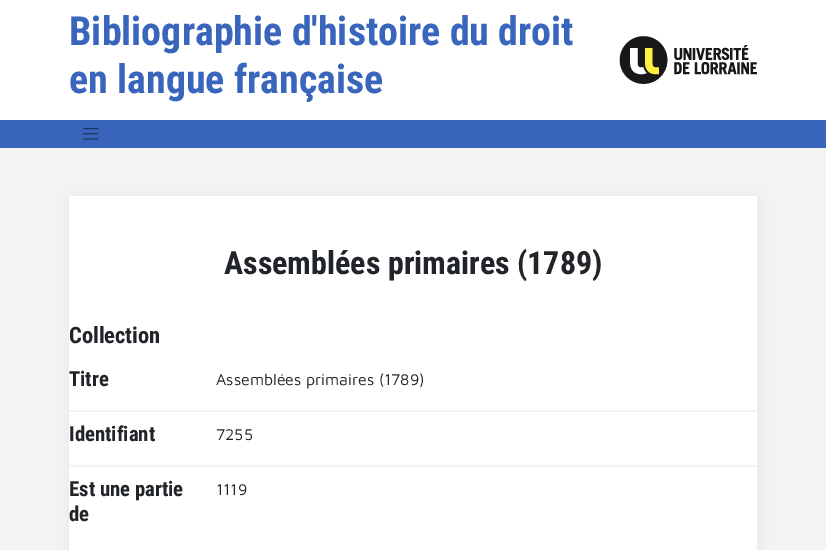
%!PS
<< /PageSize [826 550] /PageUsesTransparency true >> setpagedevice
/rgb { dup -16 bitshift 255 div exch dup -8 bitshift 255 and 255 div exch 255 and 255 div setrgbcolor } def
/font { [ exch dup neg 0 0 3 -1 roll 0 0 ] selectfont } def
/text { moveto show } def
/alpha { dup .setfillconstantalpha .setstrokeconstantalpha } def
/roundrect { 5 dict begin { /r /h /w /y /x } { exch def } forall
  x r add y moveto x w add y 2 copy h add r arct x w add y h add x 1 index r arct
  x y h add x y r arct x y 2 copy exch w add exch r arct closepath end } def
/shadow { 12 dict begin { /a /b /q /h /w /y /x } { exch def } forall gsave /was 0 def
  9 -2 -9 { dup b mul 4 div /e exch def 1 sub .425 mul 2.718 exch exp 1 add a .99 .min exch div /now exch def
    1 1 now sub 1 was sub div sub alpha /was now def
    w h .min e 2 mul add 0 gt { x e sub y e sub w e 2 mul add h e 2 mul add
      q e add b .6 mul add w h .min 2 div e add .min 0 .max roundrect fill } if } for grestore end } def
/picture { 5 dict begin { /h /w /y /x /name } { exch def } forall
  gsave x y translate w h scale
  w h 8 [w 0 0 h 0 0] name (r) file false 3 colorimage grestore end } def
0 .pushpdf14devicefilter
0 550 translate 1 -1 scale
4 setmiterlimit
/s1 { /RobotoCondensed-Bold 40 font 16#3965BC rgb } def
/s2 { /RobotoCondensed-Bold 32 font 16#212529 rgb } def
/s3 { /RobotoCondensed-Bold 22.5 font 16#212529 rgb } def
/s4 { /RobotoCondensed-Bold 20.75 font 16#212529 rgb } def
/s5 { /MavenPro-Regular 16 font 16#212529 rgb } def
16#F4F4F4 rgb
0 0 826 550 rectfill
16#FFFFFF rgb
0 0 826 120 rectfill
s1
(Bibliographie d'histoire du droit) 69 45 text
(en langue française) 69 93 text
(pic1.raw) 619 36 138 48 picture
0 120 826 28 rectfill
(pic2.raw) 83 127 16 13 picture
16#A2A2A2 rgb
70 197 688 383 0 10 0.17 shadow
16#FFFFFF rgb
69 196 688 354 rectfill
s2
(Assemblées primaires \(1789\)) 224 274 text
s3
(Collection) 69 343 text
16#F4F4F4 rgb
69 410 688 2 rectfill
s4
(Titre) 69 386 text
s5
(Assemblées primaires \(1789\)) 216 385 text
16#F4F4F4 rgb
69 465 688 2 rectfill
s4
(Identifiant) 69 441 text
s5
(7255) 216 440 text
s4
(Est une partie) 69 496 text
(de) 69 521 text
s5
(1119) 216 495 text
.poppdf14devicefilter showpage
